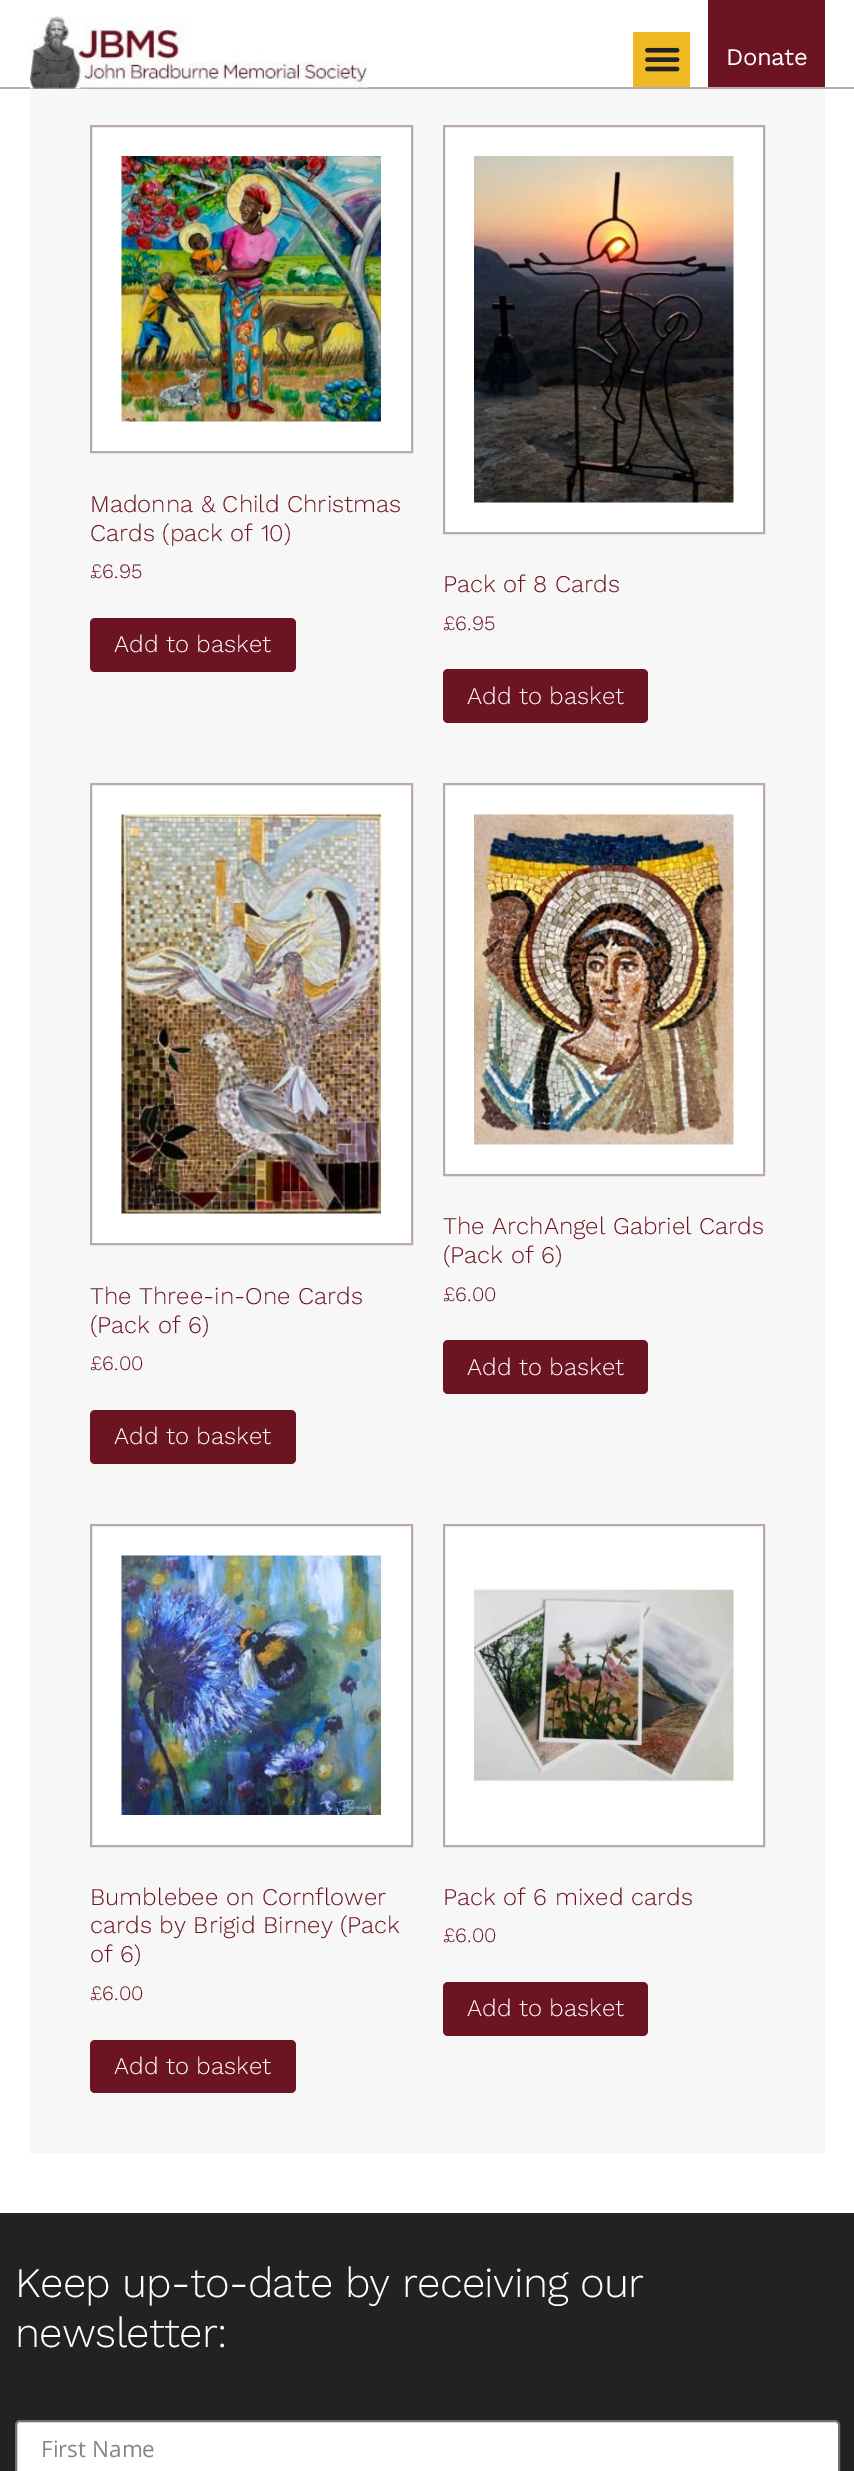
%!PS
<< /PageSize [854 2471] >> setpagedevice
/rgb { dup -16 bitshift 255 div exch dup -8 bitshift 255 and 255 div exch 255 and 255 div setrgbcolor } def
/font { [ exch dup neg 0 0 3 -1 roll 0 0 ] selectfont } def
/text { moveto show } def
/roundrect { 5 dict begin { /r /h /w /y /x } { exch def } forall
  x r add y moveto x w add y 2 copy h add r arct x w add y h add x 1 index r arct
  x y h add x y r arct x y 2 copy exch w add exch r arct closepath end } def
/picture { 5 dict begin { /h /w /y /x /name } { exch def } forall
  gsave x y translate w h scale
  w h 8 [w 0 0 h 0 0] name (r) file false 3 colorimage grestore end } def
0 2471 translate 1 -1 scale
4 setmiterlimit
/s1 { /WorkSans-Light 24 font 16#6C1422 rgb } def
/s2 { /WorkSans-Light 20.5 font 16#6C1422 rgb } def
/s3 { /WorkSans-Light 24 font 16#FFFFFF rgb } def
/s4 { /OpenSans-Regular 22.5 font 16#858585 rgb } def
16#FFFFFF rgb
0 0 854 2471 rectfill
16#BAA9AA rgb
0 87 854 2 rectfill
(pic1.raw) 30 16 338 73 picture
16#F0B823 rgb
633 32 57 55 rectfill
(pic2.raw) 645 47 35 25 picture
16#6C1422 rgb
708 0 117 87 rectfill
/WorkSans-Regular 24 font
16#FFFFFF rgb
726 65 moveto -0.5 0 (Donate) ashow
16#F7F7F7 rgb
30 89 795 2064 rectfill
16#FFFFFF rgb
91 126 moveto 412 126 lineto 412 452 lineto 91 452 lineto closepath gsave fill grestore
16#BAA9AA rgb
2 setlinewidth
stroke
(pic3.raw) 121 156 260 266 picture
s1
(Madonna & Child Christmas) 90 512 text
(Cards \(pack of 10\)) 90 541 text
s2
(£6.95) 90 578 text
90 618 206 54 5 roundrect fill
s3
(Add to basket) 114 652 text
444 126 moveto 764 126 lineto 764 533 lineto 444 533 lineto closepath gsave fill grestore
16#BAA9AA rgb
stroke
(pic4.raw) 474 156 260 347 picture
s1
(Pack of 8 Cards) 443 592 text
s2
(£6.95) 443 630 text
443 669 205 54 5 roundrect fill
s3
(Add to basket) 467 704 text
91 784 moveto 412 784 lineto 412 1244 lineto 91 1244 lineto closepath gsave fill grestore
16#BAA9AA rgb
stroke
(pic5.raw) 121 814 260 400 picture
s1
(The Three-in-One Cards) 90 1304 text
(\(Pack of 6\)) 90 1333 text
s2
(£6.00) 90 1370 text
90 1410 206 54 5 roundrect fill
s3
(Add to basket) 114 1444 text
444 784 moveto 764 784 lineto 764 1175 lineto 444 1175 lineto closepath gsave fill grestore
16#BAA9AA rgb
stroke
(pic6.raw) 474 814 260 331 picture
s1
(The ArchAngel Gabriel Cards) 443 1234 text
(\(Pack of 6\)) 443 1263 text
s2
(£6.00) 443 1301 text
443 1340 205 54 5 roundrect fill
s3
(Add to basket) 467 1375 text
91 1525 moveto 412 1525 lineto 412 1846 lineto 91 1846 lineto closepath gsave fill grestore
16#BAA9AA rgb
stroke
(pic7.raw) 121 1555 260 260 picture
s1
(Bumblebee on Cornflower) 90 1905 text
(cards by Brigid Birney \(Pack) 90 1933 text
(of 6\)) 90 1962 text
s2
(£6.00) 90 2000 text
90 2040 206 53 5 roundrect fill
s3
(Add to basket) 114 2074 text
444 1525 moveto 764 1525 lineto 764 1846 lineto 444 1846 lineto closepath gsave fill grestore
16#BAA9AA rgb
stroke
(pic8.raw) 474 1587 260 197 picture
s1
(Pack of 6 mixed cards) 443 1905 text
s2
(£6.00) 443 1942 text
443 1982 205 54 5 roundrect fill
s3
(Add to basket) 467 2016 text
16#222222 rgb
0 2213 854 258 rectfill
/WorkSans-Light 42 font
16#FFFFFF rgb
15 2297 moveto -0.75 0 (Keep up-to-date by receiving our) ashow
15 2347 moveto -0.75 0 (newsletter:) ashow
16 2421 823 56 4 roundrect gsave fill grestore
16#69727D rgb
stroke
s4
(First Name) 41 2457 text
showpage
